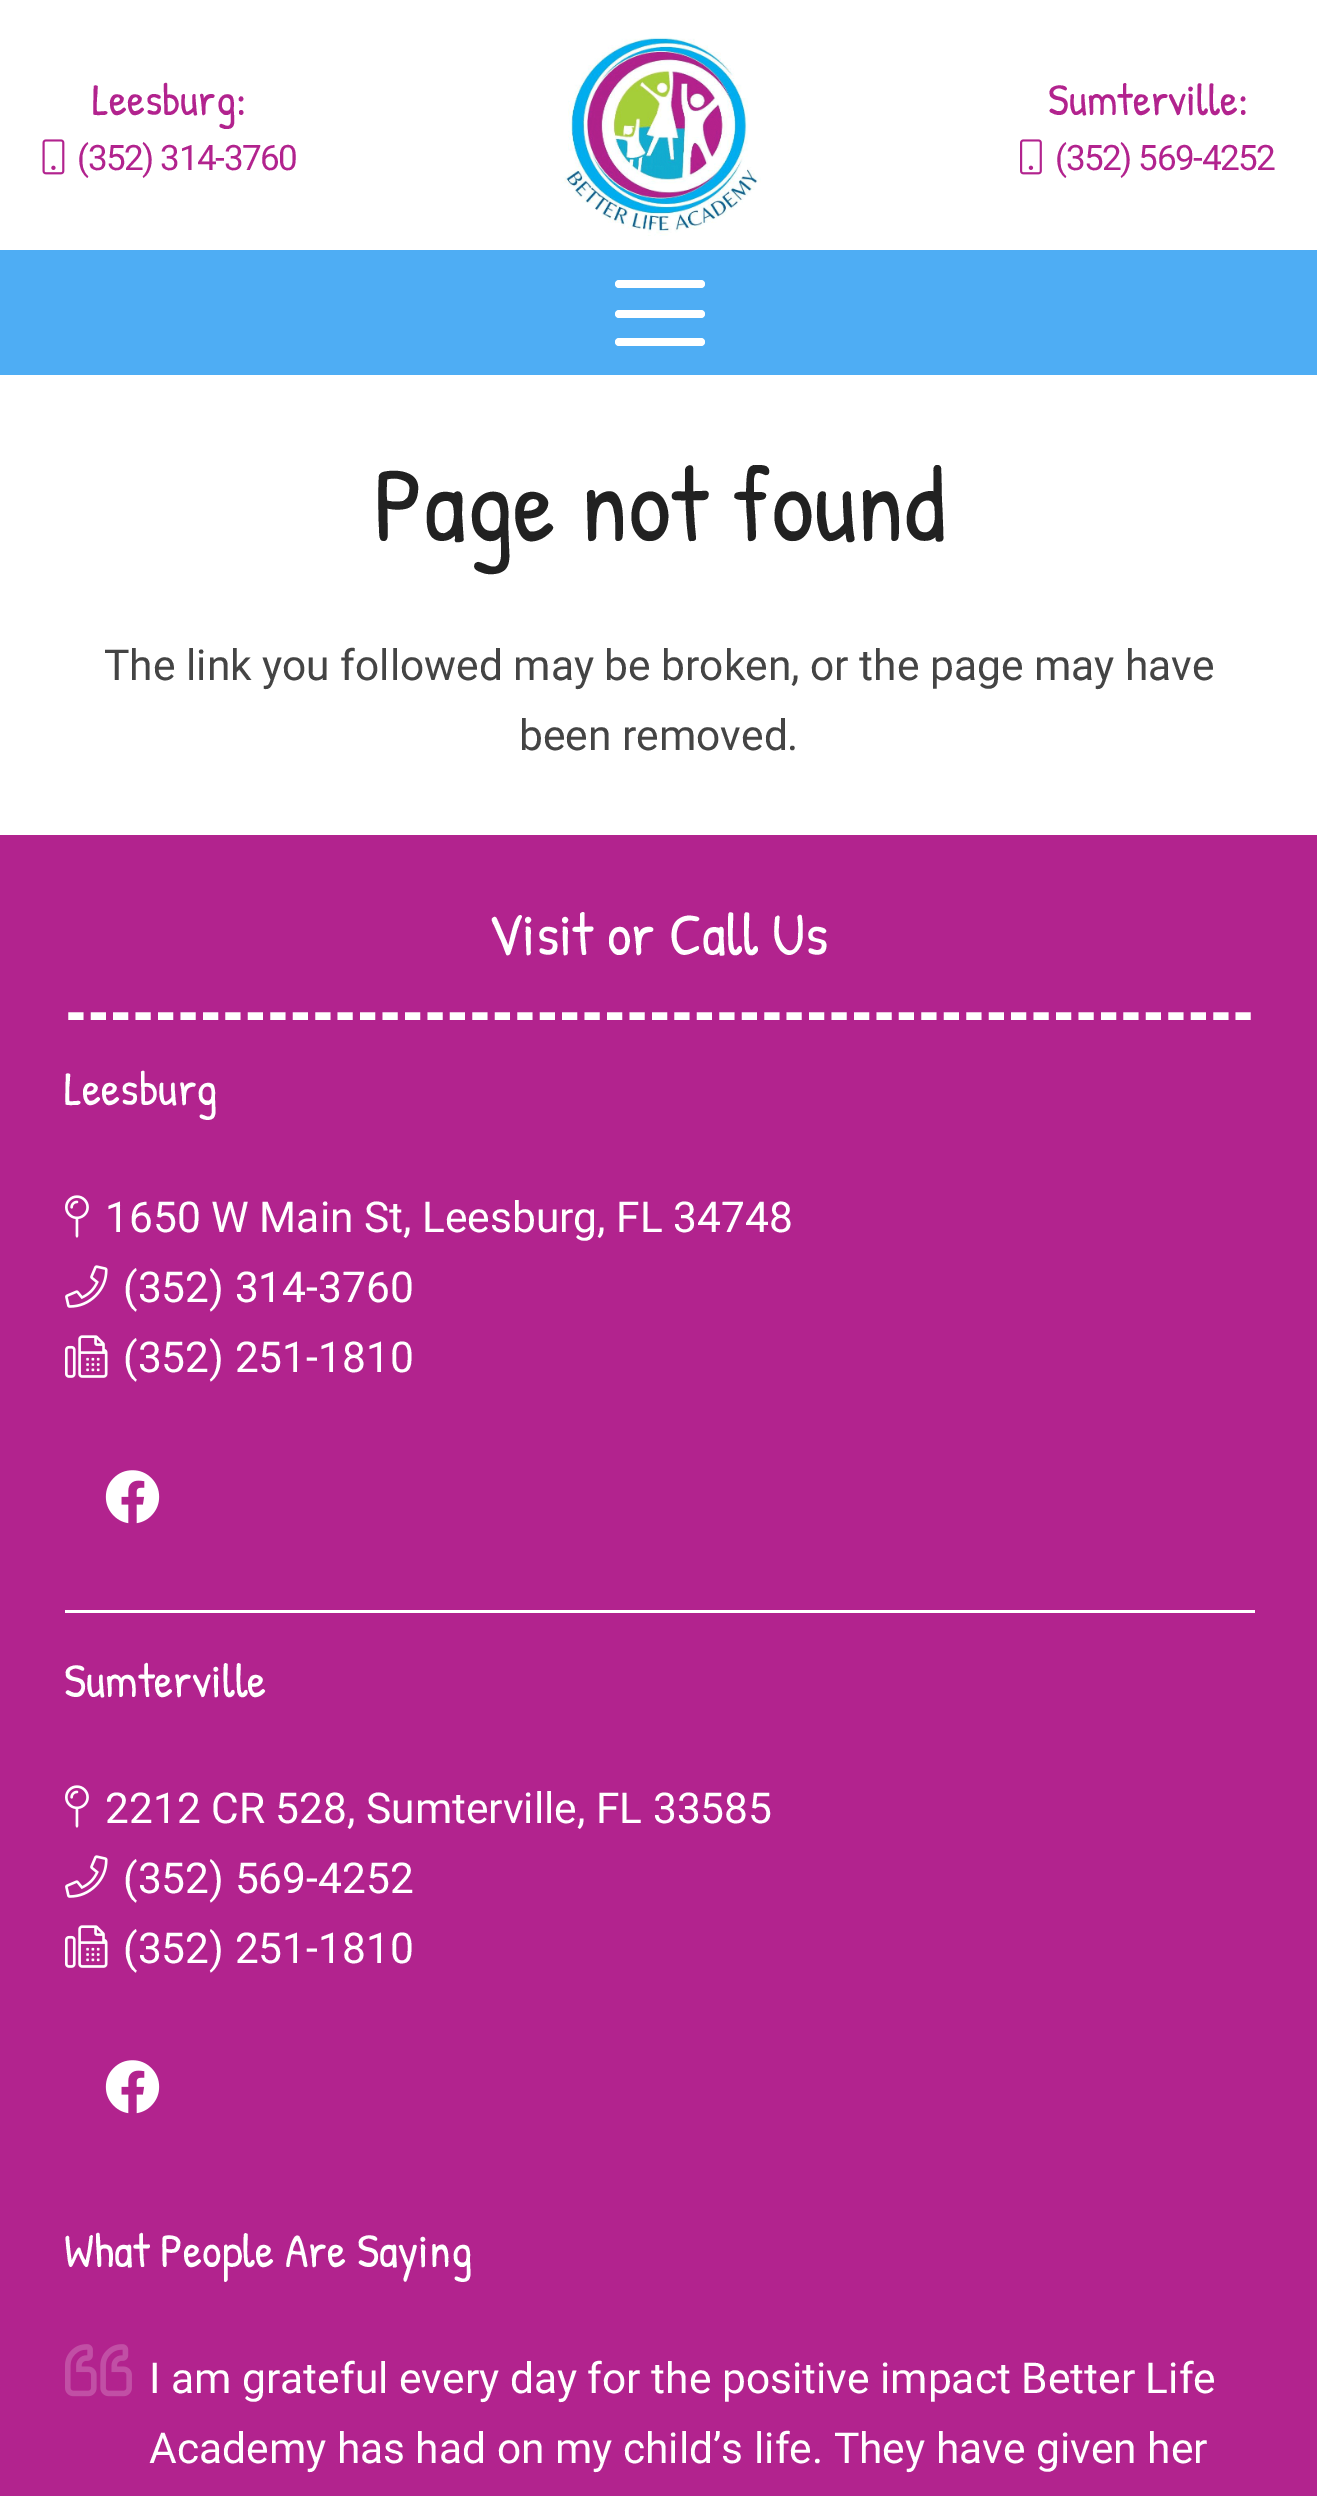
%!PS
<< /PageSize [1317 2496] >> setpagedevice
/rgb { dup -16 bitshift 255 div exch dup -8 bitshift 255 and 255 div exch 255 and 255 div setrgbcolor } def
/font { [ exch dup neg 0 0 3 -1 roll 0 0 ] selectfont } def
/text { moveto show } def
/roundrect { 5 dict begin { /r /h /w /y /x } { exch def } forall
  x r add y moveto x w add y 2 copy h add r arct x w add y h add x 1 index r arct
  x y h add x y r arct x y 2 copy exch w add exch r arct closepath end } def
/picture { 5 dict begin { /h /w /y /x /name } { exch def } forall
  gsave x y translate w h scale
  w h 8 [w 0 0 h 0 0] name (r) file false 3 colorimage grestore end } def
0 2496 translate 1 -1 scale
4 setmiterlimit
/s1 { /PatrickHand-Regular 45 font 16#B2238E rgb } def
/s2 { /PatrickHand-Regular 106.5 font 16#212121 rgb } def
/s3 { /Roboto-Regular 42.5 font 16#444444 rgb } def
/s4 { /PatrickHand-Regular 60.5 font 16#FFFFFF rgb } def
/s5 { /PatrickHand-Regular 48 font 16#FFFFFF rgb } def
/s6 { /Roboto-Regular 42.5 font 16#FFFFFF rgb } def
16#FFFFFF rgb
0 0 1317 2496 rectfill
s1
(Leesburg:) 92 115 text
(pic1.raw) 42 139 23 36 picture
/Roboto-Regular 35 font
77 170 moveto -1.4 0 (\(352\) 314-3760) ashow
(pic2.raw) 561 37 200 199 picture
s1
(Sumterville:) 1048 115 text
(pic3.raw) 1020 139 22 36 picture
/Roboto-Regular 35 font
1055 170 moveto -1.4 0 (\(352\) 569-4252) ashow
16#4EADF4 rgb
0 250 1317 125 rectfill
16#FFFFFF rgb
615 310 90 8 4 roundrect fill
615 280 90 8 4 roundrect fill
615 338 90 8 4 roundrect fill
s2
(Page not found) 373 541 text
s3
(The link you followed may be broken, or the page may have) 104 680 text
(been removed.) 519 750 text
16#B2238E rgb
0 835 1317 1661 rectfill
s4
(Visit or Call Us) 488 955 text
gsave
65 970 1190 90 rectclip
7.5 setlinewidth
[15 7.45] 0 setdash
1 1016 moveto 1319 1016 lineto stroke
grestore
s5
(Leesburg) 64 1105 text
(pic4.raw) 65 1195 24 43 picture
s6
(1650 W Main St, Leesburg, FL 34748) 105 1232 text
(pic5.raw) 65 1265 43 43 picture
(\(352\) 314-3760) 123 1302 text
(pic6.raw) 65 1335 43 43 picture
(\(352\) 251-1810) 123 1372 text
(pic7.raw) 105 1470 55 54 picture
65 1610 1190 3 rectfill
s5
(Sumterville) 64 1697 text
(pic4.raw) 65 1785 24 43 picture
s6
(2212 CR 528, Sumterville, FL 33585) 105 1823 text
(pic5.raw) 65 1855 43 43 picture
(\(352\) 569-4252) 123 1893 text
(pic6.raw) 65 1925 43 43 picture
(\(352\) 251-1810) 123 1963 text
(pic7.raw) 105 2060 55 54 picture
s5
(What People Are Saying) 64 2267 text
(pic8.raw) 65 2344 67 53 picture
s6
(I am grateful every day for the positive impact Better Life) 149 2393 text
(Academy has had on my child’s life. They have given her) 149 2463 text
showpage
